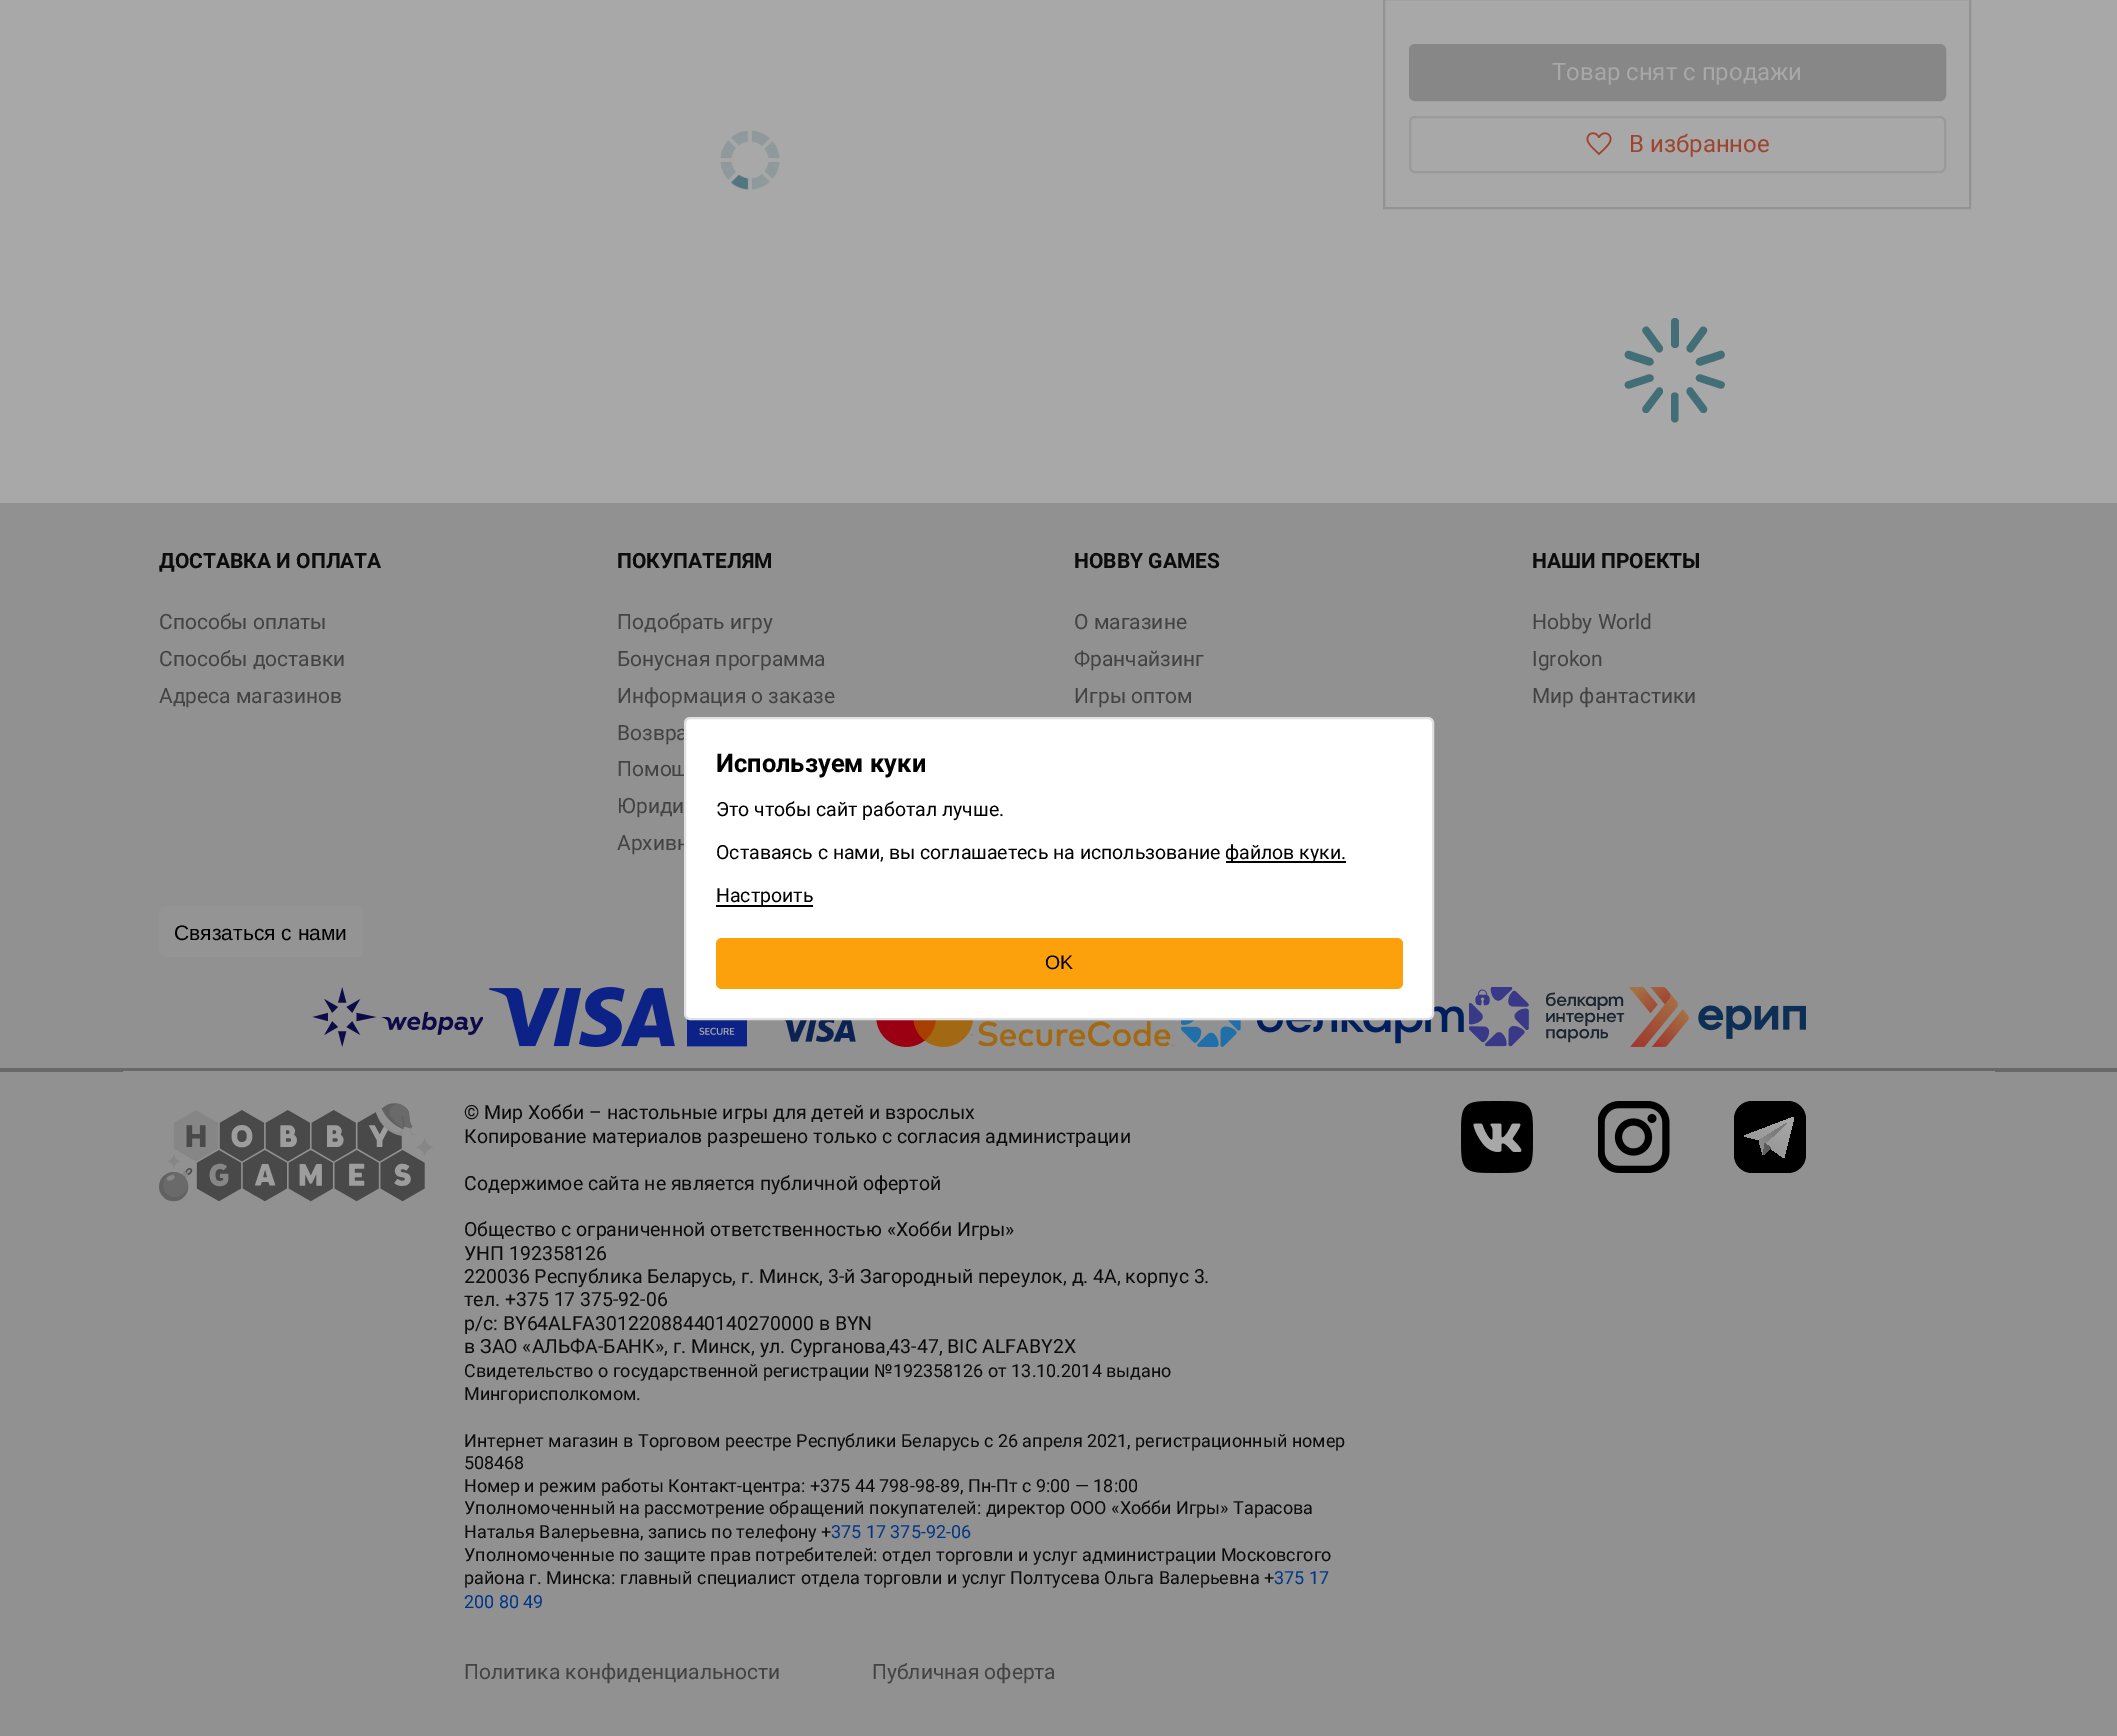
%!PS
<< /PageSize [2117 1736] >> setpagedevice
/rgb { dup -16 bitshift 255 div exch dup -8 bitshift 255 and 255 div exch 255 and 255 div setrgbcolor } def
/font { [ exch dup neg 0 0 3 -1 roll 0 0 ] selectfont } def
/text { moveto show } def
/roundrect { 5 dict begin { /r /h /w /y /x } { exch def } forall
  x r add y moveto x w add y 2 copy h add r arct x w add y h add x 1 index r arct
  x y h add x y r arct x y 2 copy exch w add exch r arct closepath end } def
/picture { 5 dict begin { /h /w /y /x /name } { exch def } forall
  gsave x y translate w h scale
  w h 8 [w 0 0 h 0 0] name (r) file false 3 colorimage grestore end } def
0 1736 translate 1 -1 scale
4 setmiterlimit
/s1 { /Roboto-Regular 24 font 16#A8A8A8 rgb } def
/s2 { /Roboto-Regular 24 font 16#9E442F rgb } def
/s3 { /Roboto-Bold 21 font 16#0C0C0C rgb } def
/s4 { /Roboto-Regular 21 font 16#434343 rgb } def
/s5 { /LiberationSans-Regular 21 font 16#000000 rgb } def
/s6 { /Roboto-Regular 19.5 font 16#0C0C0C rgb } def
/s7 { /Roboto-Regular 18 font 16#0C0C0C rgb } def
/s8 { /Roboto-Regular 18 font 16#003687 rgb } def
/s9 { /Roboto-Bold 25.5 font 16#000000 rgb } def
/s10 { /Roboto-Regular 19.5 font 16#000000 rgb } def
/s11 { /LiberationSans-Regular 19.5 font 16#000000 rgb } def
16#A8A8A8 rgb
0 0 2117 1736 rectfill
(pic1.raw) 720 130 60 60 picture
16#939393 rgb
2 setlinewidth
1384 -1 586 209 rectstroke
16#878787 rgb
1410 45 535 55 5 roundrect gsave fill grestore
stroke
s1
(Товар снят с продажи) 1552 80 text
16#9A9A9A rgb
1410 117 535 55 5 roundrect stroke
(pic2.raw) 1586 132 26 24 picture
s2
(В избранное) 1629 152 text
16#426E77 rgb
1644 412.5 moveto 1642 411 1642 409 1643 407 curveto 1656.5 389 lineto 1657.5 387 1660 387 1661.5 388 curveto 1663 389.5 1663.5 391.5 1662.5 393.5 curveto 1649 411.5 lineto 1648 413 1645.5 413.5 1644 412.5 curveto closepath fill
1625 386 moveto 1624 384 1625.5 382 1627 381.5 curveto 1648.5 374.5 lineto 1650.5 374 1652.5 375 1653.5 377 curveto 1654 379 1653 381 1651 381.5 curveto 1629.5 388.5 lineto 1627.5 389 1625.5 388 1625 386 curveto closepath 1625 353.5 moveto 1625.5 351.5 1627.5 350.5 1629.5 351 curveto 1651 358 lineto 1653 359 1654 361 1653.5 363 curveto 1652.5 365 1650.5 366 1648.5 365.5 curveto 1627 358.5 lineto 1625.5 357.5 1624 355.5 1625 353.5 curveto closepath fill
1644 327.5 moveto 1645.5 326 1648 326.5 1649 328 curveto 1662.5 346.5 lineto 1663.5 348 1663 350.5 1661.5 351.5 curveto 1660 353 1657.5 352.5 1656.5 351 curveto 1643 332.5 lineto 1642 331 1642 328.5 1644 327.5 curveto closepath fill
1671 318 8 30 4 roundrect fill
1705.5 327.5 moveto 1707.5 328.5 1707.5 331 1706.5 332.5 curveto 1693 351 lineto 1692 352.5 1689.5 353 1688 351.5 curveto 1686.5 350.5 1686 348 1687 346.5 curveto 1700.5 328 lineto 1701.5 326.5 1704 326 1705.5 327.5 curveto closepath fill
1724.5 353.5 moveto 1725.5 355.5 1724 357.5 1722.5 358.5 curveto 1701 365.5 lineto 1699 366 1697 365 1696 363 curveto 1695.5 361 1696.5 359 1698.5 358 curveto 1720 351 lineto 1722 350.5 1724 351.5 1724.5 353.5 curveto closepath 1724.5 386 moveto 1724 388 1722 389 1720 388.5 curveto 1698.5 381.5 lineto 1696.5 381 1695.5 379 1696 377 curveto 1697 375 1699 374 1701 374.5 curveto 1722.5 381.5 lineto 1724 382 1725.5 384 1724.5 386 curveto closepath fill
1705.5 412.5 moveto 1704 413.5 1701.5 413 1700.5 411.5 curveto 1687 393.5 lineto 1686 391.5 1686.5 389.5 1688 388 curveto 1689.5 387 1692 387 1693 389 curveto 1706.5 407 lineto 1707.5 409 1707.5 411 1705.5 412.5 curveto closepath 1675 422.5 moveto 1672.5 422.5 1671 420.5 1671 418.5 curveto 1671 396 lineto 1671 394 1672.5 392.5 1675 392.5 curveto 1677 392.5 1678.5 394 1678.5 396 curveto 1678.5 418.5 lineto 1678.5 420.5 1677 422.5 1675 422.5 curveto closepath fill
16#919191 rgb
0 503 2117 1233 rectfill
s3
(ДОСТАВКА И ОПЛАТА) 159 568 text
s4
(Способы оплаты) 159 629 text
(Способы доставки) 159 666 text
(Адреса магазинов) 159 703 text
s3
(ПОКУПАТЕЛЯМ) 617 568 text
s4
(Подобрать игру) 617 629 text
(Бонусная программа) 617 666 text
(Информация о заказе) 617 703 text
(Возвра) 617 740 text
(Помощ) 617 776 text
(Юриди) 617 813 text
(Архивн) 617 850 text
s3
(HOBBY GAMES) 1074 568 text
s4
(О магазине) 1074 629 text
(Франчайзинг) 1074 666 text
(Игры оптом) 1074 703 text
s3
(НАШИ ПРОЕКТЫ) 1532 568 text
s4
(Hobby World) 1532 629 text
(Igrokon) 1532 666 text
(Мир фантастики) 1532 703 text
16#949494 rgb
159 906 204 51 6 roundrect fill
s5
(Связаться с нами) 174 940 text
(pic3.raw) 312 987 171 60 picture
(pic4.raw) 489 987 186 60 picture
(pic5.raw) 687 1019 60 28 picture
(pic6.raw) 784 1020 72 22 picture
(pic7.raw) 876 1020 97 27 picture
(pic8.raw) 978 1021 196 26 picture
(pic9.raw) 1181 1006 283 41 picture
(pic10.raw) 1469 987 156 60 picture
(pic11.raw) 1629 987 177 60 picture
16#686868 rgb
0 1068 2117 4 rectfill
16#919191 rgb
123 1071 1872 1 rectfill
(pic12.raw) 159 1103 274 99 picture
s6
(© Мир Хобби – настольные игры для детей и взрослых) 464 1119 text
(Копирование материалов разрешено только с согласия администрации) 464 1143 text
(Содержимое сайта не является публичной офертой) 464 1190 text
(Общество с ограниченной ответственностью «Хобби Игры») 464 1236 text
(УНП 192358126) 464 1260 text
(220036 Республика Беларусь, г. Минск, 3-й Загородный переулок, д. 4А, корпус 3.) 464 1283 text
(тел. +375 17 375-92-06) 464 1306 text
(р/с: BY64ALFA30122088440140270000 в BYN) 464 1330 text
(в ЗАО «АЛЬФА-БАНК», г. Минск, ул. Сурганова,43-47, BIC ALFABY2X) 464 1353 text
s7
(Свидетельство о государственной регистрации №192358126 от 13.10.2014 выдано) 464 1377 text
(Мингорисполкомом.) 464 1400 text
(Интернет магазин в Торговом реестре Республики Беларусь с 26 апреля 2021, регистрационный номер) 464 1447 text
(508468) 464 1469 text
(Номер и режим работы Контакт-центра: +375 44 798-98-89, Пн-Пт с 9:00 — 18:00) 464 1492 text
(Уполномоченный на рассмотрение обращений покупателей: директор ООО «Хобби Игры» Тарасова) 464 1514 text
(Наталья Валерьевна, запись по телефону +) 464 1538 text
s8
(375 17 375-92-06) 831 1538 text
s7
(Уполномоченные по защите прав потребителей: отдел торговли и услуг администрации Московсгого) 464 1561 text
(района г. Минска: главный специалист отдела торговли и услуг Полтусева Ольга Валерьевна +) 464 1584 text
s8
(375 17) 1274 1584 text
(200 80 49) 464 1608 text
s4
(Политика конфиденциальности) 464 1679 text
(Публичная оферта) 872 1679 text
(pic13.raw) 1461 1101 72 72 picture
(pic14.raw) 1598 1101 72 72 picture
16#000000 rgb
1734 1101 72 72 18 roundrect fill
gsave 1744 1136 moveto 1759 1140 lineto 1763 1155 lineto 1770 1148 lineto 1784 1158 lineto 1794 1117 lineto closepath clip newpath
<< /ShadingType 2 /ColorSpace /DeviceRGB /Coords [1773 1146 1787 1123] /Extend [true true] /Function << /FunctionType 2 /Domain [0 1] /C0 [0.604 0.604 0.604] /C1 [0.651 0.651 0.651] /N 1 >> >> shfill grestore
gsave 1765 1143.5 moveto 1763 1155 lineto 1759 1140.5 lineto 1787 1123 lineto closepath clip newpath
<< /ShadingType 2 /ColorSpace /DeviceRGB /Coords [1759 1147 1776 1132] /Extend [true true] /Function << /FunctionType 2 /Domain [0 1] /C0 [0.553 0.553 0.553] /C1 [0.482 0.482 0.482] /N 1 >> >> shfill grestore
gsave 1763 1155 moveto 1765 1143.5 lineto 1770.5 1148 lineto closepath clip newpath
<< /ShadingType 2 /ColorSpace /DeviceRGB /Coords [1763 1155 1768 1147] /Extend [true true] /Function << /FunctionType 2 /Domain [0 1] /C0 [0.392 0.392 0.392] /C1 [0.353 0.353 0.353] /N 1 >> >> shfill grestore
16#FFFFFF rgb
685 718 748 301 5 roundrect gsave fill grestore
16#E0E0E0 rgb
stroke
s9
(Используем куки) 716 772 text
s10
(Это чтобы сайт работал лучше.) 716 816 text
(Оставаясь с нами, вы соглашаетесь на использование) 716 859 text
1226 861 120 2 rectfill
(файлов куки.) 1225 859 text
716 905 97 2 rectfill
(Настроить) 716 902 text
16#FCA10B rgb
716 938 687 51 6 roundrect fill
s11
(OK) 1045 969 text
showpage
